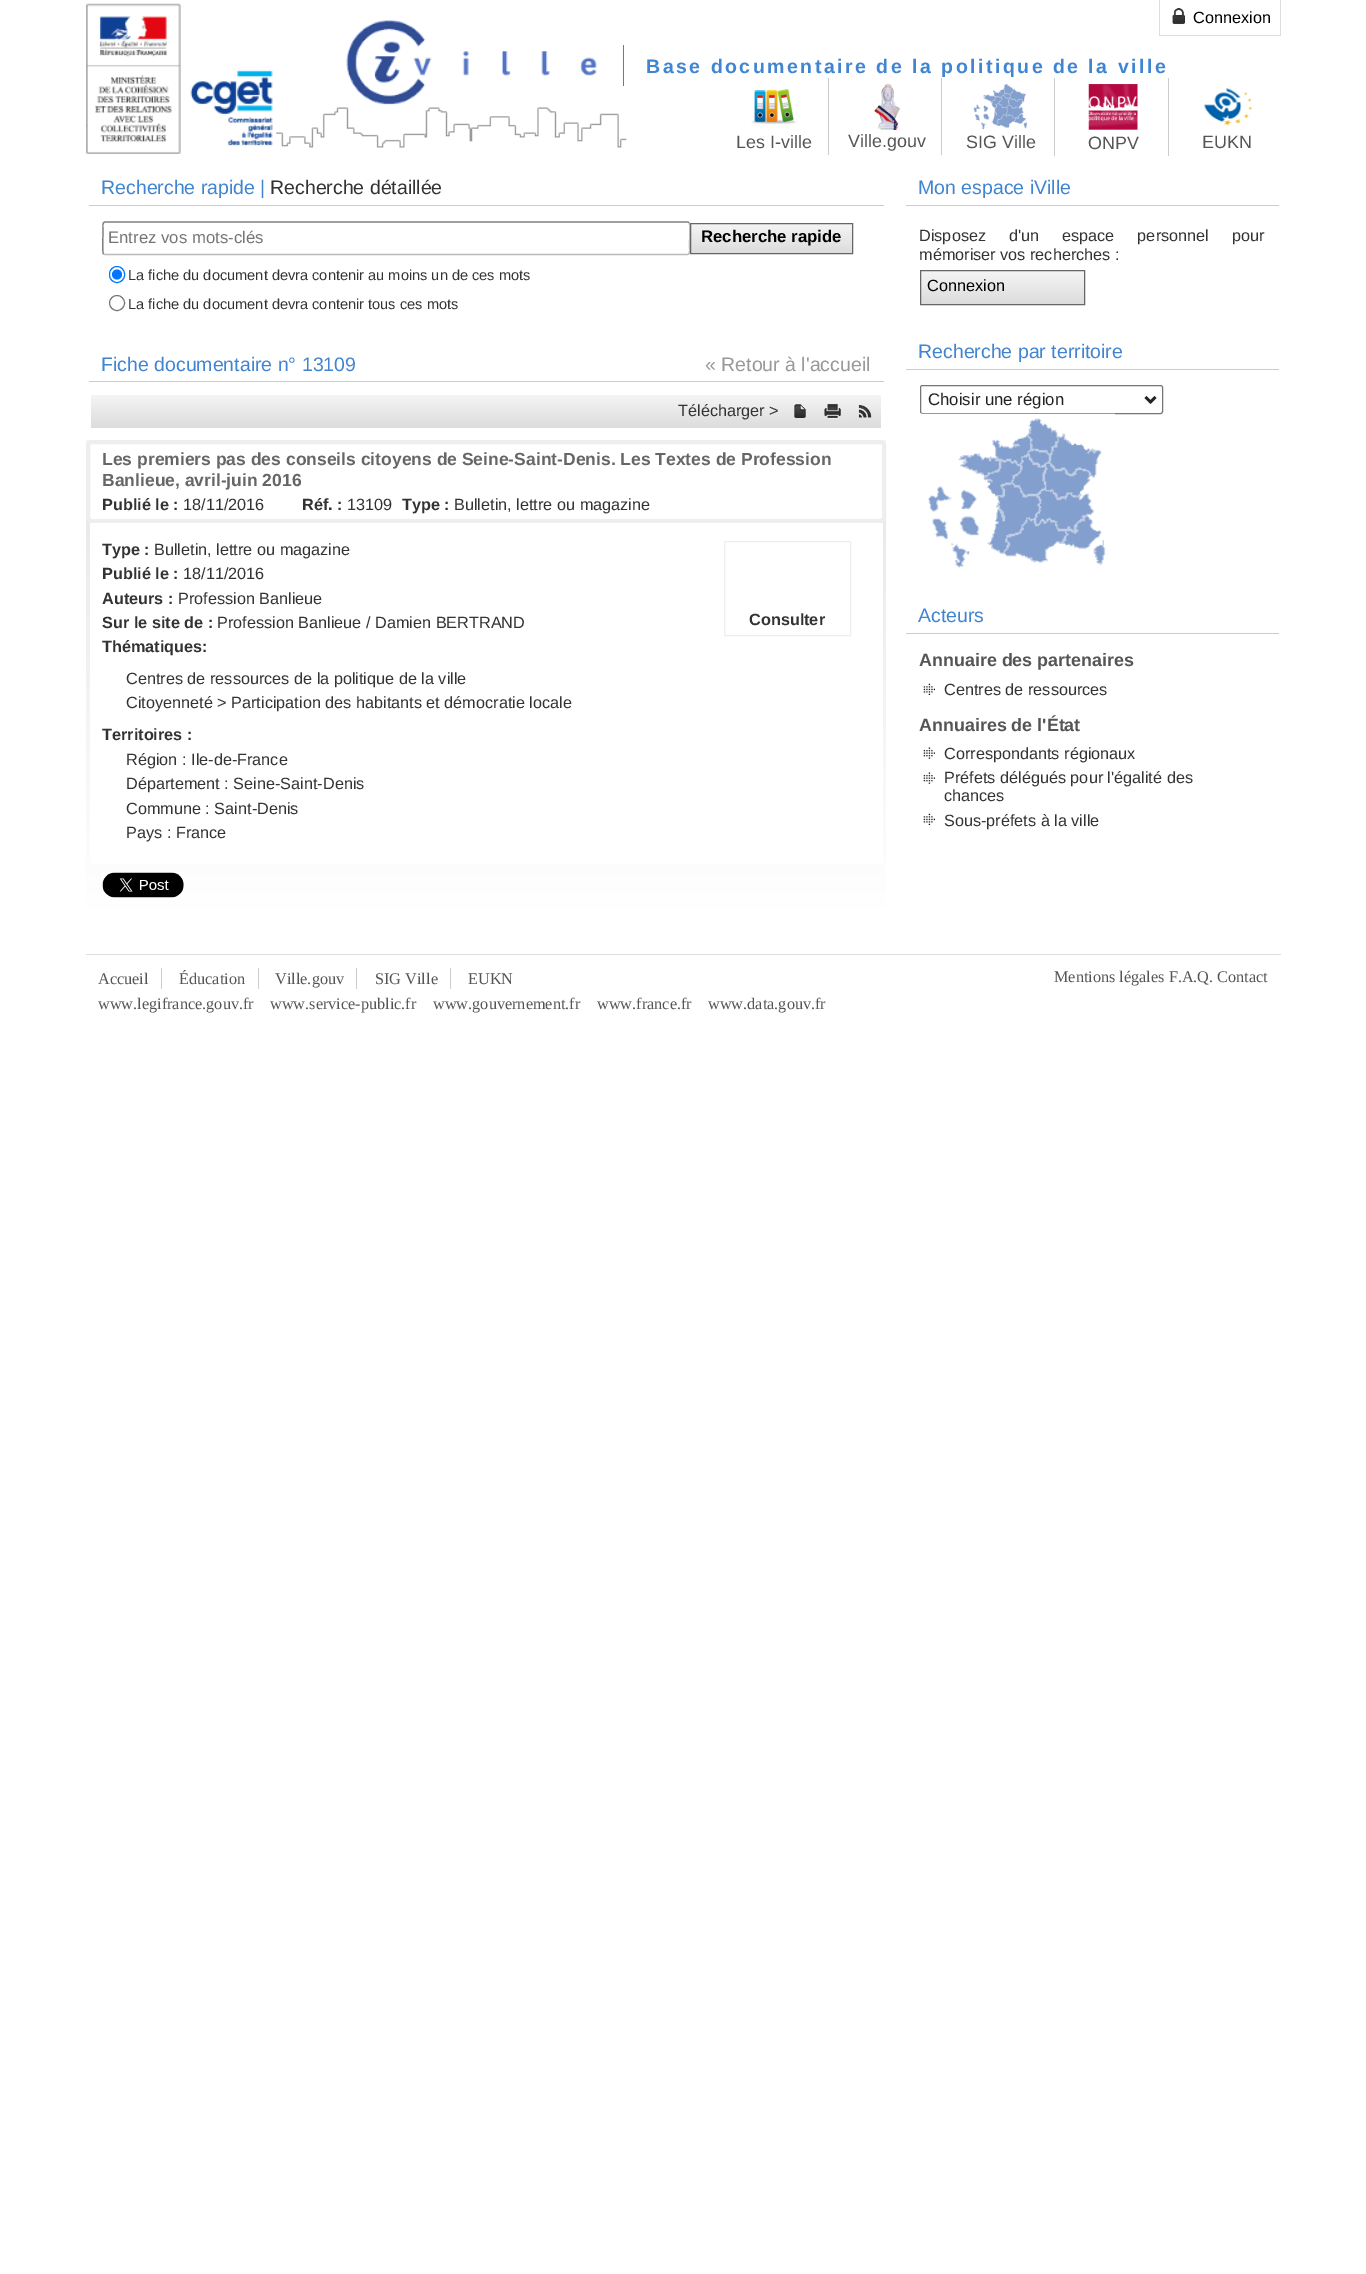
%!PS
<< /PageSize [1366 2274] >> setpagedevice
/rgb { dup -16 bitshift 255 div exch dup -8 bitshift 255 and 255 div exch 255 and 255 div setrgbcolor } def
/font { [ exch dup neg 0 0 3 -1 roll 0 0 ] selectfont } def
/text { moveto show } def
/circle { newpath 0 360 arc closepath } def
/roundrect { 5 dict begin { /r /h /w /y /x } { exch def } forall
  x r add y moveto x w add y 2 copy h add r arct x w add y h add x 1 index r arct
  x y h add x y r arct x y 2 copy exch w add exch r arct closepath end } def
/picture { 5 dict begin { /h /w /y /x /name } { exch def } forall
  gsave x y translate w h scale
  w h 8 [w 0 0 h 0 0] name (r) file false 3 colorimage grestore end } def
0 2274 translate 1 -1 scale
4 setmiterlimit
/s1 { /LiberationSans-Regular 16.25 font 16#000000 rgb } def
/s2 { /LiberationSans-Regular 17.9 font 16#555555 rgb } def
/s3 { /LiberationSans-Regular 19.5 font 16#4185D2 rgb } def
/s4 { /LiberationSans-Regular 19.5 font 16#333333 rgb } def
/s5 { /LiberationSans-Regular 16.75 font 16#757575 rgb } def
/s6 { /LiberationSans-Bold 16.75 font 16#000000 rgb } def
/s7 { /LiberationSans-Regular 14.6 font 16#333333 rgb } def
/s8 { /LiberationSans-Regular 19.5 font 16#999999 rgb } def
/s9 { /LiberationSans-Regular 16.25 font 16#333333 rgb } def
/s10 { /LiberationSans-Bold 17.5 font 16#666666 rgb } def
/s11 { /LiberationSans-Bold 16.25 font 16#333333 rgb } def
/s12 { /LiberationSans-Regular 16.75 font 16#222222 rgb } def
/s13 { /LiberationSans-Bold 17.9 font 16#555555 rgb } def
/s14 { /LiberationSerif-Regular 16.25 font 16#555555 rgb } def
16#FFFFFF rgb
0 0 1366 2274 rectfill
(pic1.raw) 86 103 541 46 picture
(pic2.raw) 86 3 191 151 picture
16#DDDDDD rgb
1280 0 1 36 rectfill
1159 35 122 1 rectfill
1159 0 1 36 rectfill
(pic3.raw) 1172 8 14 17 picture
s1
(Connexion) 1193 23 text
(pic4.raw) 346 20 251 85 picture
16#4185D2 rgb
623 45 1 41 rectfill
/LiberationSans-Bold 19.5 font
646 73 moveto 2.5 0 (Base documentaire de la politique de la ville) ashow
16#CCCCCC rgb
828 78 1 77 rectfill
(pic5.raw) 751 89 45 35 picture
s2
(Les I-ville) 736 148 text
16#CCCCCC rgb
941 78 1 77 rectfill
(pic6.raw) 873 84 27 46 picture
s2
(Ville.gouv) 848 147 text
16#CCCCCC rgb
1054 78 1 78 rectfill
(pic7.raw) 973 84 54 46 picture
s2
(SIG Ville) 966 148 text
16#CCCCCC rgb
1168 78 1 78 rectfill
(pic8.raw) 1088 84 50 46 picture
s2
(ONPV) 1088 149 text
(pic9.raw) 1203 88 49 38 picture
(EUKN) 1202 148 text
16#CCCCCC rgb
89 205 795 1 rectfill
s3
(Recherche rapide |) 101 194 text
s4
(Recherche détaillée) 270 194 text
16#BBBBBB rgb
1.2 setlinewidth
689 222.5 moveto 690.5 224 689.5 240 689.5 243 curveto 689.5 247.5 lineto 689.5 248.5 690.5 254.5 687.5 254.5 curveto 105 254.5 lineto 103.5 254 lineto stroke
16#7D7D7D rgb
103.5 254 moveto 102 252 103 236.5 103 233.5 curveto 103 228.5 lineto 103 227.5 102 222 105 222 curveto 687.5 222 lineto 689 222.5 lineto stroke
s5
(Entrez vos mots-clés) 108 243 text
gsave 691 224 moveto 852 224 lineto 852 253 lineto 691 253 lineto closepath clip newpath
<< /ShadingType 2 /ColorSpace /DeviceRGB /Coords [771 224 771 253] /Extend [true true] /Function << /FunctionType 2 /Domain [0 1] /C0 [0.961 0.961 0.961] /C1 [0.863 0.863 0.863] /N 1 >> >> shfill grestore
16#666666 rgb
1 setlinewidth
690.5 223.5 162 30 rectstroke
s6
(Recherche rapide) 701 242 text
16#0075FF rgb
109.5 266.5 15 16 7.5 roundrect stroke
117 274.5 5 circle fill
s7
(La fiche du document devra contenir au moins un de ces mots) 128 280 text
16#767676 rgb
117 303 7.5 circle stroke
s7
(La fiche du document devra contenir tous ces mots) 128 309 text
16#CCCCCC rgb
89 381 795 1 rectfill
s3
(Fiche documentaire n° 13109) 101 371 text
s8
(« Retour à l'accueil) 705 371 text
gsave 91 395 moveto 881 395 lineto 881 428 lineto 91 428 lineto closepath clip newpath
<< /ShadingType 2 /ColorSpace /DeviceRGB /Coords [486 395 486 428] /Extend [true true] /Function << /FunctionType 2 /Domain [0 1] /C0 [0.961 0.961 0.961] /C1 [0.863 0.863 0.863] /N 1 >> >> shfill grestore
s9
(Télécharger >) 678 416 text
(pic10.raw) 794 404 12 14 picture
(pic11.raw) 824 403 17 16 picture
(pic12.raw) 858 405 14 13 picture
gsave 86 440 800 470 2.5 roundrect clip newpath
<< /ShadingType 2 /ColorSpace /DeviceRGB /Coords [486 440 486 910] /Extend [true true] /Function << /FunctionType 3 /Domain [0 1] /Functions [<< /FunctionType 2 /Domain [0 1] /C0 [0.969 0.969 0.969] /C1 [0.91 0.91 0.91] /N 1 >> << /FunctionType 2 /Domain [0 1] /C0 [0.91 0.91 0.91] /C1 [1 1 1] /N 1 >>] /Bounds [0.1] /Encode [0 1 0 1] >> >> shfill grestore
16#FFFFFF rgb
88 442 796 79 4 roundrect gsave fill grestore
16#EEEEEE rgb
4 setlinewidth
stroke
s10
(Les premiers pas des conseils citoyens de Seine-Saint-Denis. Les Textes de Profession) 102 465 text
(Banlieue, avril-juin 2016) 102 486 text
s11
(Publié le :) 102 510 text
s9
(18/11/2016) 183 510 text
s11
(Réf. :) 302 510 text
s9
(13109) 347 510 text
s11
(Type :) 402 510 text
s9
(Bulletin, lettre ou magazine) 454 510 text
16#FFFFFF rgb
90 523 793 341 rectfill
s11
(Type :) 102 555 text
s9
(Bulletin, lettre ou magazine) 154 555 text
s11
(Publié le :) 102 579 text
s9
(18/11/2016) 183 579 text
s11
(Auteurs :) 102 604 text
s9
(Profession Banlieue) 178 604 text
s11
(Sur le site de :) 102 628 text
s9
(Profession Banlieue / Damien BERTRAND) 217 628 text
16#EEEEEE rgb
1 setlinewidth
724.5 541.5 126 94 rectstroke
s11
(Consulter) 749 625 text
(Thématiques:) 102 652 text
s9
(Centres de ressources de la politique de la ville) 126 684 text
(Citoyenneté > Participation des habitants et démocratie locale) 126 708 text
s11
(Territoires :) 102 740 text
s9
(Région : Ile-de-France) 126 765 text
(Département : Seine-Saint-Denis) 126 789 text
(Commune : Saint-Denis) 126 814 text
(Pays : France) 126 838 text
(pic13.raw) 102 872 82 26 picture
16#CCCCCC rgb
906 205 373 1 rectfill
s3
(Mon espace iVille) 918 194 text
/LiberationSans-Regular 16.25 font
16#333333 rgb
919 241 moveto 18.5 0 32 (Disposez d'un espace personnel pour) widthshow
(mémoriser vos recherches :) 919 260 text
gsave 921 271 moveto 1084 271 lineto 1084 304 lineto 921 304 lineto closepath clip newpath
<< /ShadingType 2 /ColorSpace /DeviceRGB /Coords [1003 271 1003 304] /Extend [true true] /Function << /FunctionType 2 /Domain [0 1] /C0 [0.961 0.961 0.961] /C1 [0.863 0.863 0.863] /N 1 >> >> shfill grestore
16#666666 rgb
920.5 270.5 164 34 rectstroke
s1
(Connexion) 927 291 text
16#CCCCCC rgb
906 369 373 1 rectfill
s3
(Recherche par territoire) 918 358 text
16#767676 rgb
920.5 385.5 242 28 2 roundrect stroke
16#222222 rgb
2.5 setlinewidth
1145.5 397 moveto 1150.5 402 lineto 1155.5 397 lineto stroke
s12
(Choisir une région) 928 405 text
(pic14.raw) 920 413 195 155 picture
16#CCCCCC rgb
906 633 373 1 rectfill
s3
(Acteurs) 918 622 text
s13
(Annuaire des partenaires) 919 666 text
(pic15.raw) 923 683 12 12 picture
s9
(Centres de ressources) 944 695 text
s13
(Annuaires de l'État) 919 731 text
(pic16.raw) 923 747 12 12 picture
s9
(Correspondants régionaux) 944 759 text
(pic17.raw) 923 772 12 12 picture
(Préfets délégués pour l'égalité des) 944 783 text
(chances) 944 801 text
(pic15.raw) 923 813 12 12 picture
(Sous-préfets à la ville) 944 826 text
16#DDDDDD rgb
86 954 1195 1 rectfill
16#CCCCCC rgb
161 968 1 21 rectfill
s14
(Accueil) 98 984 text
16#CCCCCC rgb
258 968 1 21 rectfill
s14
(Éducation) 179 984 text
16#CCCCCC rgb
356 968 1 21 rectfill
s14
(Ville.gouv) 275 984 text
16#CCCCCC rgb
450 968 1 21 rectfill
s14
(SIG Ville) 375 984 text
(EUKN) 468 984 text
(Mentions légales F.A.Q. Contact) 1054 982 text
(www.legifrance.gouv.fr) 98 1009 text
(www.service-public.fr) 270 1009 text
(www.gouvernement.fr) 433 1009 text
(www.france.fr) 597 1009 text
(www.data.gouv.fr) 708 1009 text
showpage
